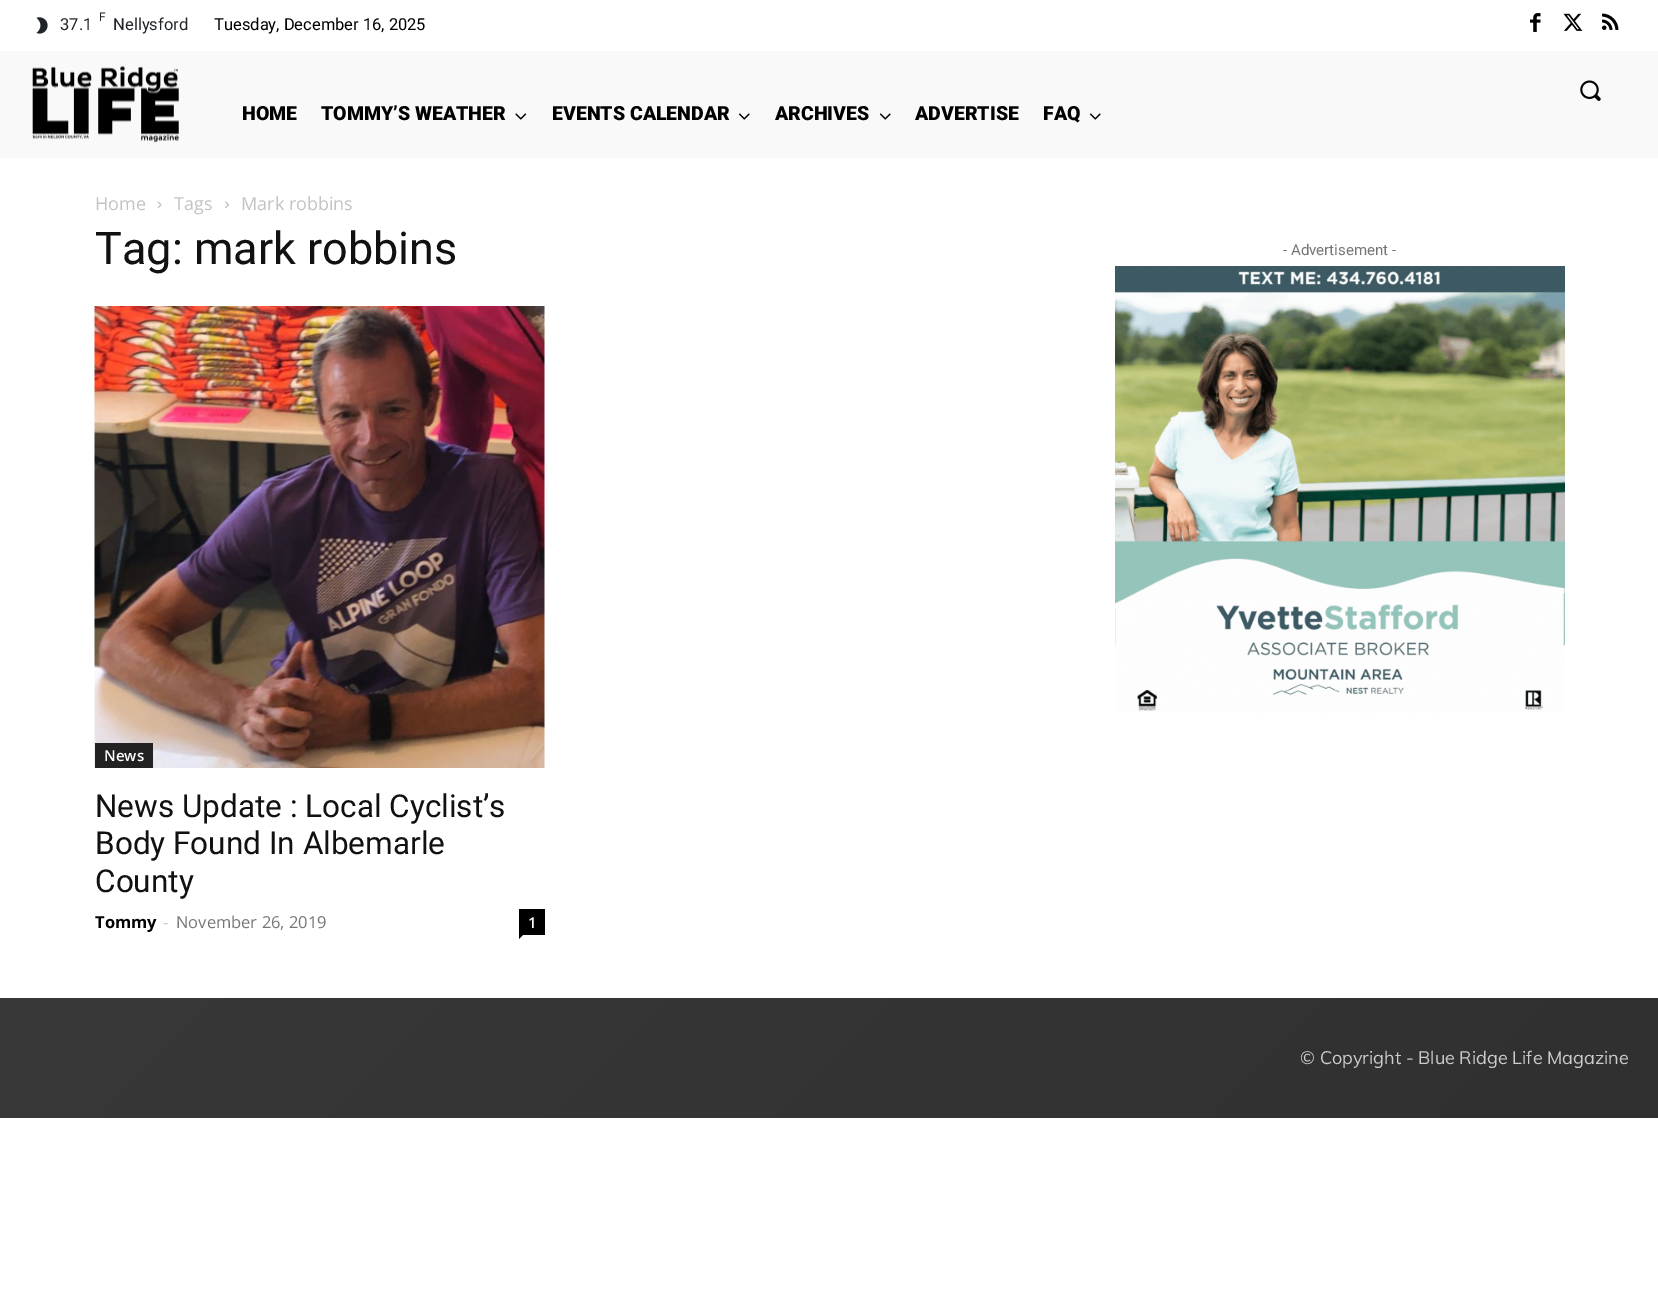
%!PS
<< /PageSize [1658 1303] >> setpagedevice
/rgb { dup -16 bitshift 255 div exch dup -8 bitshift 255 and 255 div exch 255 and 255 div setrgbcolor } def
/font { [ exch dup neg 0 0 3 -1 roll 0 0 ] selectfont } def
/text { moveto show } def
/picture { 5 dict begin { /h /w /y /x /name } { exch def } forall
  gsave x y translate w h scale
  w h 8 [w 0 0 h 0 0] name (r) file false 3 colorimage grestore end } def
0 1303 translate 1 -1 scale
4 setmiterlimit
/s1 { /Roboto-Regular 12 font 16#212529 rgb } def
/s2 { /Roboto-Regular 16.5 font 16#212529 rgb } def
/s3 { /Roboto-Regular 16.5 font 16#000000 rgb } def
/s4 { /Roboto-Black 19.5 font 16#000000 rgb } def
/s5 { /OpenSans-Regular 18 font 16#C3C3C3 rgb } def
/s6 { /Roboto-Regular 45 font 16#111111 rgb } def
/s7 { /OpenSans-SemiBold 15 font 16#FFFFFF rgb } def
/s8 { /Roboto-Regular 31.5 font 16#111111 rgb } def
/s9 { /OpenSans-Bold 16.5 font 16#000000 rgb } def
/s10 { /OpenSans-Regular 16.5 font 16#CCCCCC rgb } def
/s11 { /OpenSans-Regular 16.5 font 16#767676 rgb } def
/s12 { /Roboto-Regular 15 font 16#767676 rgb } def
/s13 { /Muli-Regular 18 font 16#CCCCCC rgb } def
16#FFFFFF rgb
0 0 1658 1303 rectfill
(pic1.raw) 36 17 12 17 picture
s1
(F) 99 21 text
s2
(37.1) 60 30 text
(Nellysford) 113 30 text
s3
(Tuesday, December 16, 2025) 214 30 text
(pic2.raw) 1530 13 11 19 picture
(pic3.raw) 1563 13 20 18 picture
(pic4.raw) 1602 13 17 17 picture
16#F9F9F9 rgb
0 51 1658 107 rectfill
(pic5.raw) 32 65 147 78 picture
(pic6.raw) 1580 80 21 21 picture
s4
(HOME) 242 120 text
(TOMMY’S WEATHER) 321 120 text
(pic7.raw) 515 113 12 7 picture
(EVENTS CALENDAR) 552 120 text
(pic8.raw) 738 113 12 7 picture
(ARCHIVES) 775 120 text
(pic8.raw) 879 113 12 7 picture
(ADVERTISE) 915 120 text
(FAQ) 1043 120 text
(pic8.raw) 1089 113 12 7 picture
s5
(Home) 95 210 text
(pic9.raw) 157 201 5 8 picture
(Tags) 174 210 text
(pic10.raw) 225 201 4 8 picture
(Mark robbins) 241 210 text
s6
(Tag: mark robbins) 95 264 text
(pic11.raw) 94 306 451 462 picture
16#222222 rgb
95 743 58 25 rectfill
s7
(News) 104 761 text
s8
(News Update : Local Cyclist’s) 95 817 text
(Body Found In Albemarle) 95 854 text
(County) 95 892 text
s9
(Tommy) 95 928 text
s10
(-) 163 928 text
s11
(November 26, 2019) 176 928 text
16#000000 rgb
519 909 26 26 rectfill
s7
(1) 528 928 text
16#000000 rgb
519 934.5 moveto 523.5 934.5 lineto 519 939 lineto closepath fill
s12
(- Advertisement -) 1283 255 text
(pic12.raw) 1115 266 450 447 picture
gsave 0 998 moveto 1658 998 lineto 1658 1118 lineto 0 1118 lineto closepath clip newpath
<< /ShadingType 2 /ColorSpace /DeviceRGB /Coords [1274 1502 385 613] /Extend [true true] /Function << /FunctionType 2 /Domain [0 1] /C0 [0.188 0.188 0.188] /C1 [0.22 0.22 0.22] /N 1 >> >> shfill grestore
s13
(© Copyright - Blue Ridge Life Magazine) 1300 1064 text
showpage
